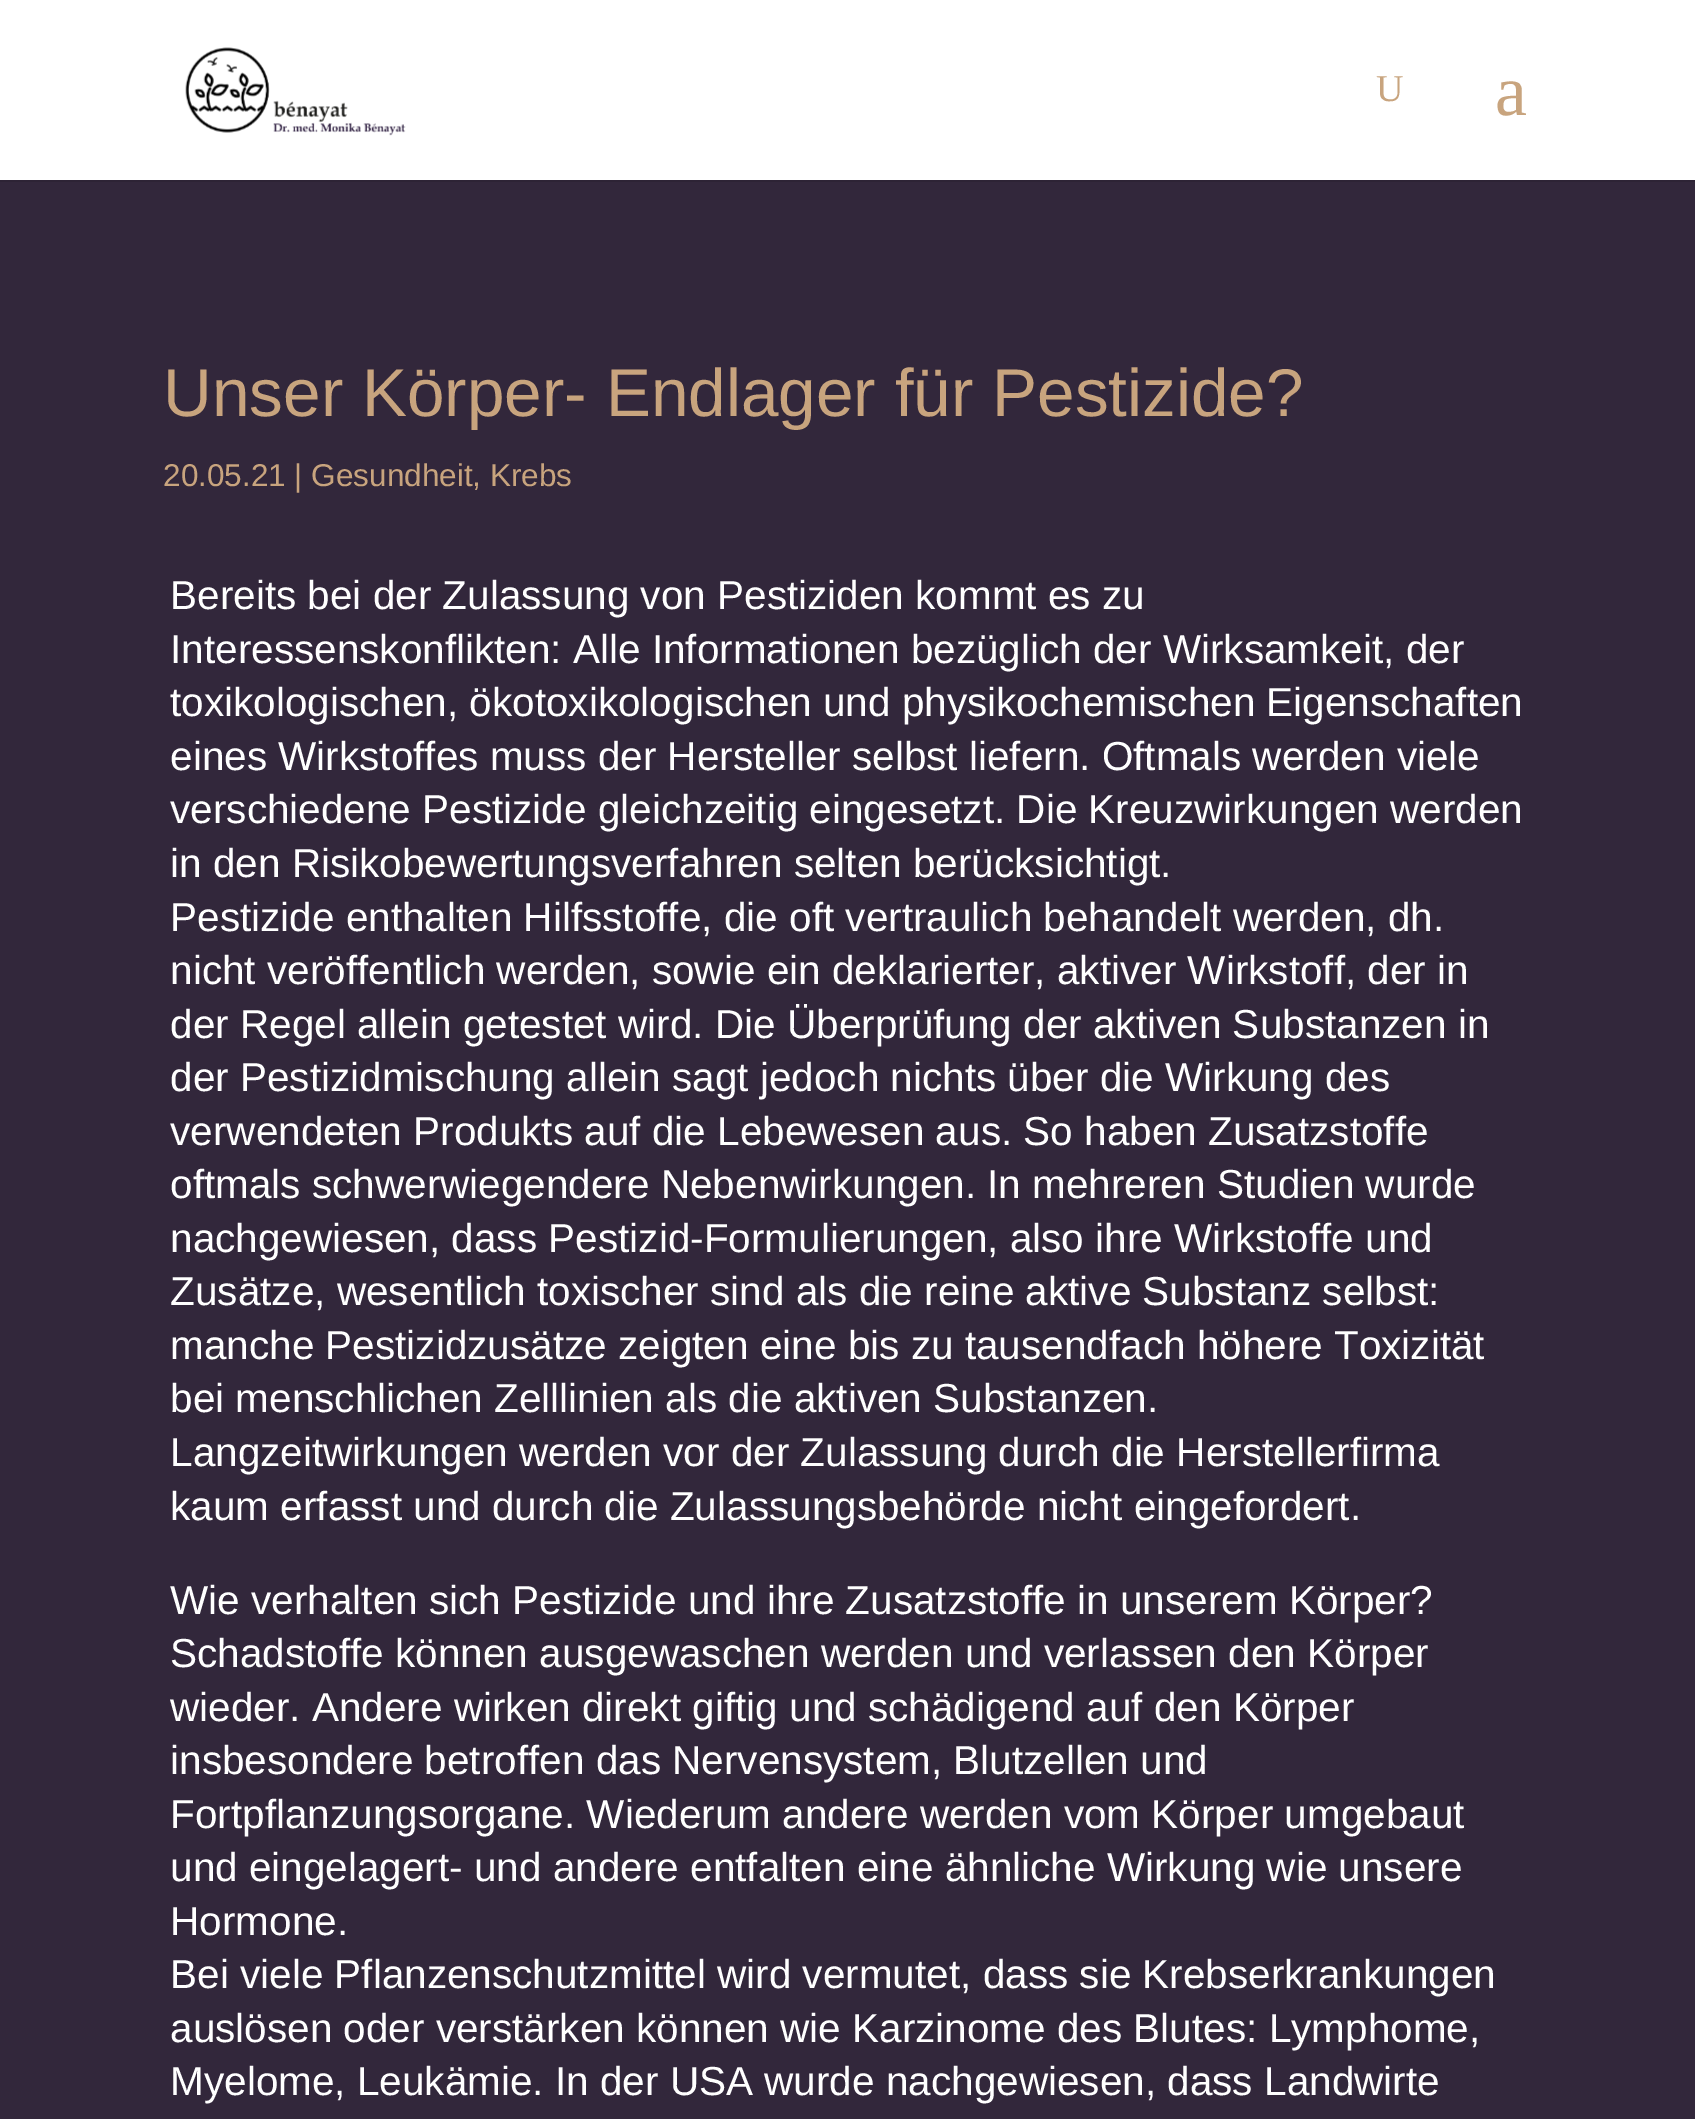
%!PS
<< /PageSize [1695 2119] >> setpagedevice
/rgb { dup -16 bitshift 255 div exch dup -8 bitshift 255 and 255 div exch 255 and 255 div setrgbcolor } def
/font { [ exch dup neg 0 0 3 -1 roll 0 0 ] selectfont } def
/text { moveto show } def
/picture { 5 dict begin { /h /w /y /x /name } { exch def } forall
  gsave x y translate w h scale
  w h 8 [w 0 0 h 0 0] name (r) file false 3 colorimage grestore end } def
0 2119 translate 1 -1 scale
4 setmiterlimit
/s1 { /LiberationSerif-Regular 38 font 16#C8A47E rgb } def
/s2 { /LiberationSerif-Regular 72 font 16#C8A47E rgb } def
/s3 { /LiberationSans-Regular 67.5 font 16#C8A47E rgb } def
/s4 { /LiberationSans-Regular 31.5 font 16#C8A47E rgb } def
/s5 { /LiberationSans-Regular 40.5 font 16#FFFFFF rgb } def
16#FFFFFF rgb
0 0 1695 2119 rectfill
16#2D2335 rgb
0 180 moveto 0 182 lineto 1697 182 lineto 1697 2 lineto 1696 2 lineto 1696 180 lineto closepath fill
(pic1.raw) 185 47 221 89 picture
s1
(U) 1376 101 text
s2
(a) 1495 115 text
16#32273B rgb
0 182 1695 1937 rectfill
s3
(Unser Körper- Endlager für Pestizide?) 163 416 text
s4
(20.05.21 | Gesundheit, Krebs) 163 486 text
s5
(Bereits bei der Zulassung von Pestiziden kommt es zu) 170 609 text
(Interessenskonflikten: Alle Informationen bezüglich der Wirksamkeit, der) 170 663 text
(toxikologischen, ökotoxikologischen und physikochemischen Eigenschaften) 170 716 text
(eines Wirkstoffes muss der Hersteller selbst liefern. Oftmals werden viele) 170 770 text
(verschiedene Pestizide gleichzeitig eingesetzt. Die Kreuzwirkungen werden) 170 823 text
(in den Risikobewertungsverfahren selten berücksichtigt.) 170 877 text
(Pestizide enthalten Hilfsstoffe, die oft vertraulich behandelt werden, dh.) 170 931 text
(nicht veröffentlich werden, sowie ein deklarierter, aktiver Wirkstoff, der in) 170 984 text
(der Regel allein getestet wird. Die Überprüfung der aktiven Substanzen in) 170 1038 text
(der Pestizidmischung allein sagt jedoch nichts über die Wirkung des) 170 1091 text
(verwendeten Produkts auf die Lebewesen aus. So haben Zusatzstoffe) 170 1145 text
(oftmals schwerwiegendere Nebenwirkungen. In mehreren Studien wurde) 170 1198 text
(nachgewiesen, dass Pestizid-Formulierungen, also ihre Wirkstoffe und) 170 1252 text
(Zusätze, wesentlich toxischer sind als die reine aktive Substanz selbst:) 170 1305 text
(manche Pestizidzusätze zeigten eine bis zu tausendfach höhere Toxizität) 170 1359 text
(bei menschlichen Zelllinien als die aktiven Substanzen.) 170 1412 text
(Langzeitwirkungen werden vor der Zulassung durch die Herstellerfirma) 170 1466 text
(kaum erfasst und durch die Zulassungsbehörde nicht eingefordert.) 170 1520 text
(Wie verhalten sich Pestizide und ihre Zusatzstoffe in unserem Körper?) 170 1614 text
(Schadstoffe können ausgewaschen werden und verlassen den Körper) 170 1667 text
(wieder. Andere wirken direkt giftig und schädigend auf den Körper) 170 1721 text
(insbesondere betroffen das Nervensystem, Blutzellen und) 170 1774 text
(Fortpflanzungsorgane. Wiederum andere werden vom Körper umgebaut) 170 1828 text
(und eingelagert- und andere entfalten eine ähnliche Wirkung wie unsere) 170 1881 text
(Hormone.) 170 1935 text
(Bei viele Pflanzenschutzmittel wird vermutet, dass sie Krebserkrankungen) 170 1988 text
(auslösen oder verstärken können wie Karzinome des Blutes: Lymphome,) 170 2042 text
(Myelome, Leukämie. In der USA wurde nachgewiesen, dass Landwirte) 170 2095 text
showpage
